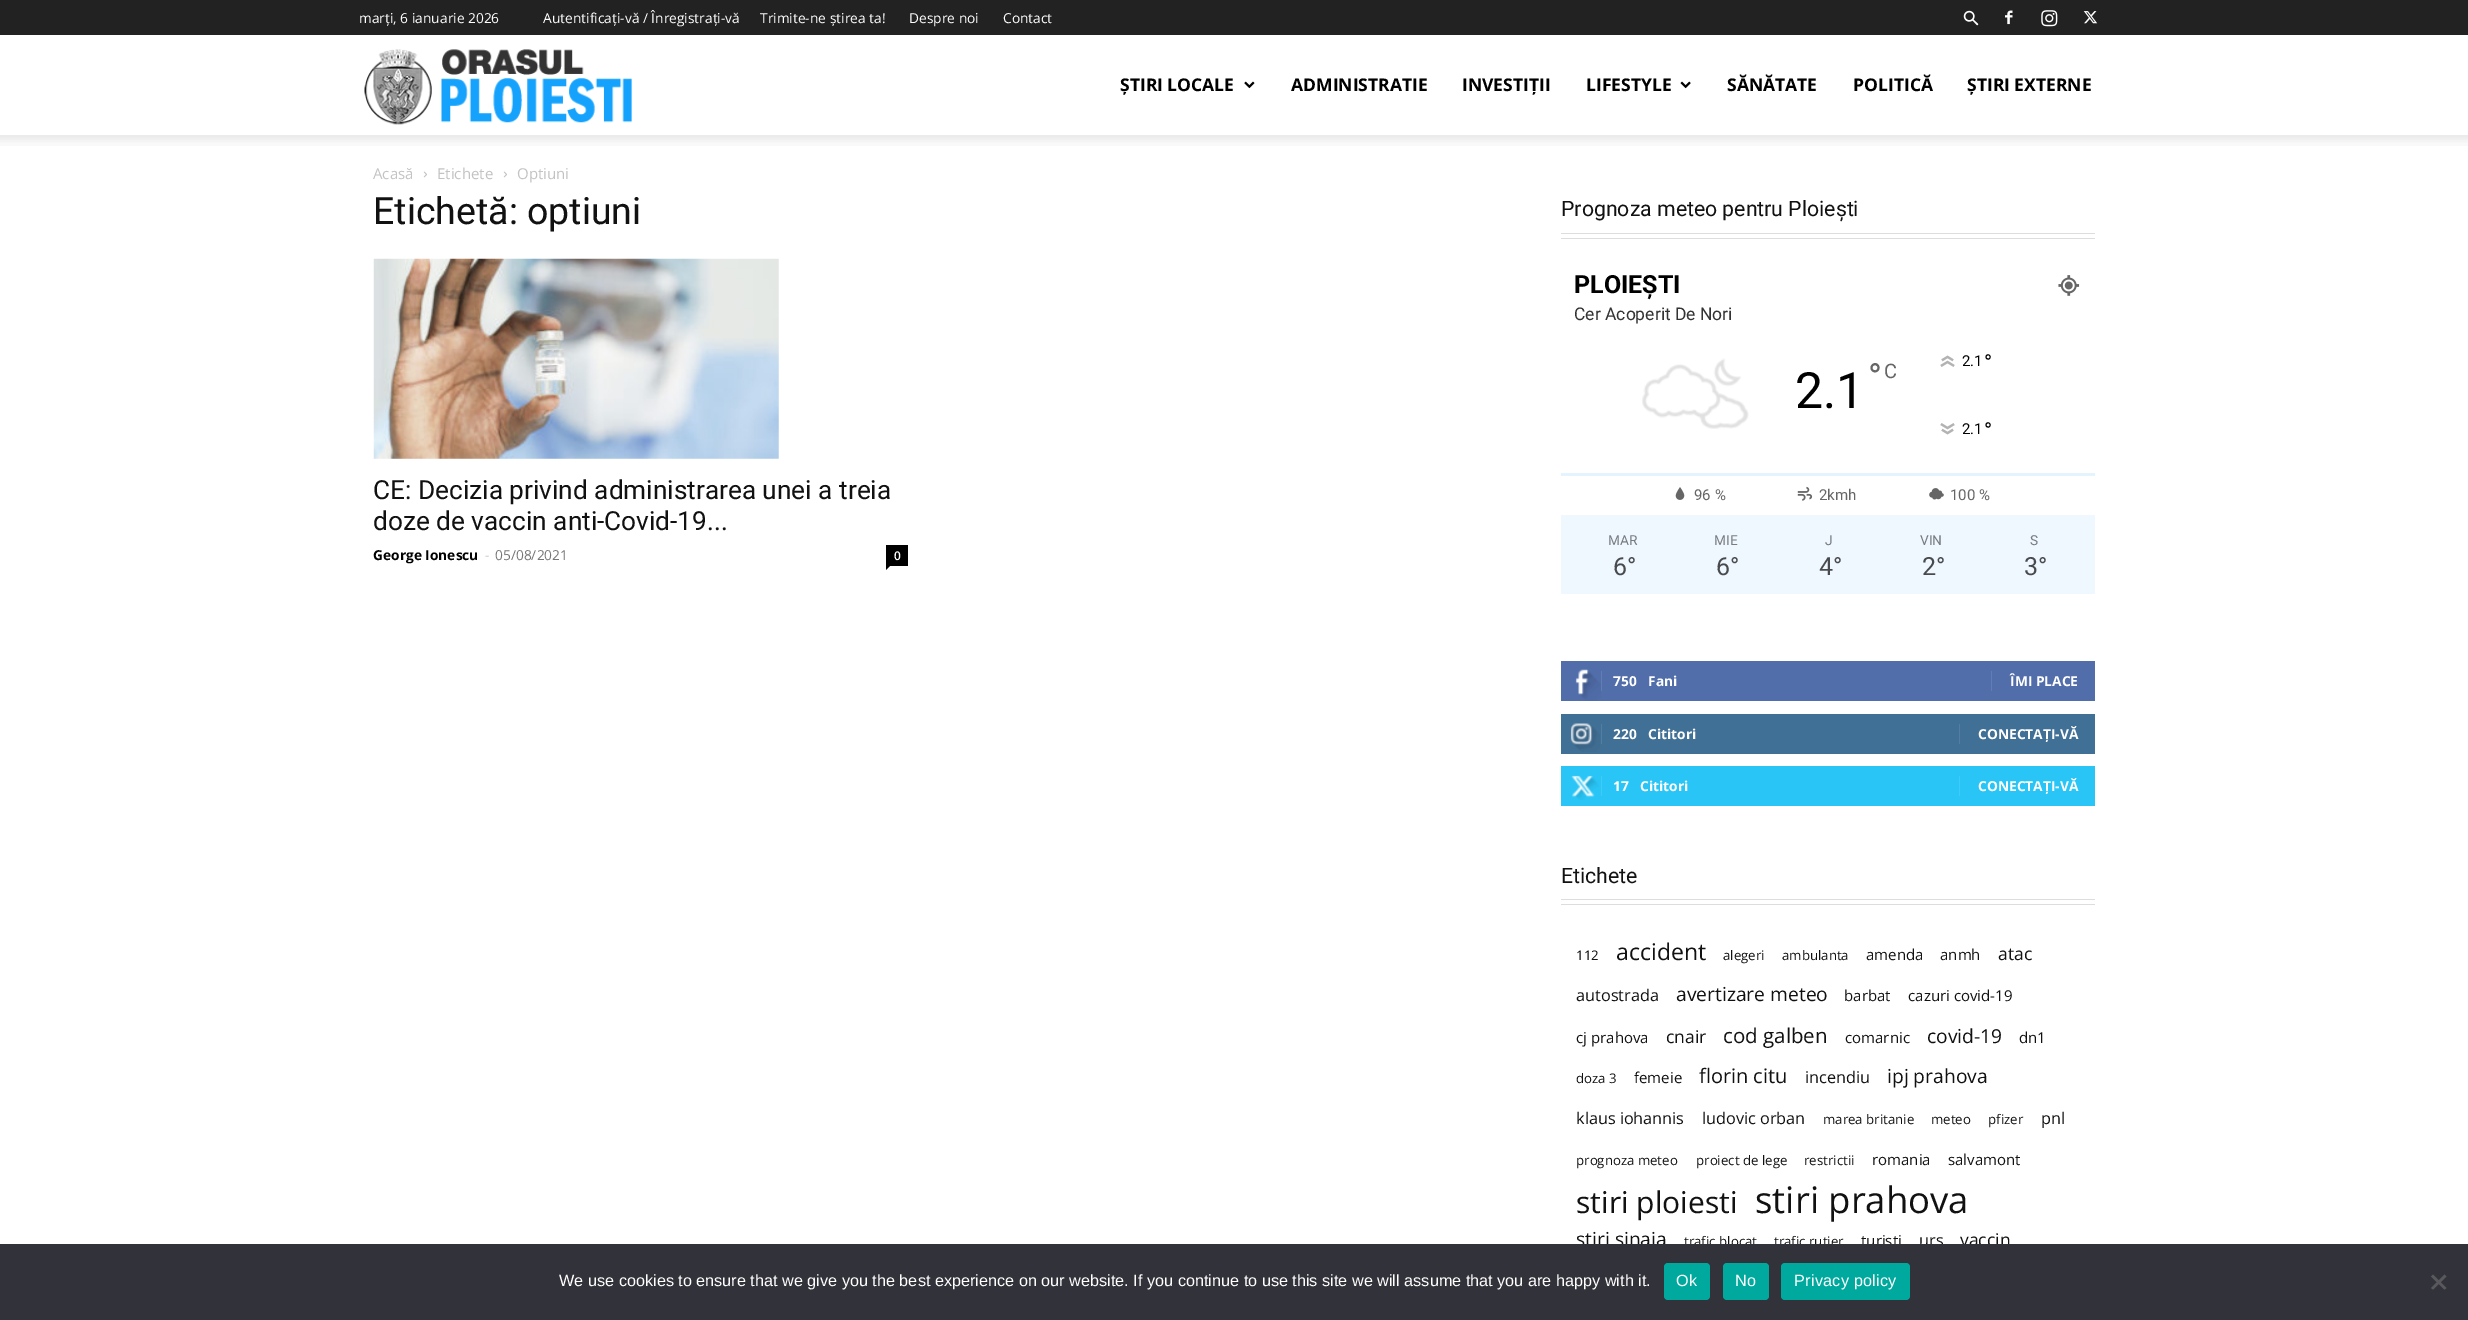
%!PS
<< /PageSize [2468 1320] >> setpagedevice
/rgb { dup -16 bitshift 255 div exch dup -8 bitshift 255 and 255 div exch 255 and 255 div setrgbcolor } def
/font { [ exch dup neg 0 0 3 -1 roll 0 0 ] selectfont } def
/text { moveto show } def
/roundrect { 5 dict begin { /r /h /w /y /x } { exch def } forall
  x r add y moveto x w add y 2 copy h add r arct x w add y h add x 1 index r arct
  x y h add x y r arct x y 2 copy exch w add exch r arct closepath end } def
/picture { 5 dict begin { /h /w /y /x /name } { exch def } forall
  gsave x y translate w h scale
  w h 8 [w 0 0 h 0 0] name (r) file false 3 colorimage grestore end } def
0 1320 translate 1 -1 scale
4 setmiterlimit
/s1 { /OpenSans-Regular 13.75 font 16#FFFFFF rgb } def
/s2 { /OpenSans-Bold 17.5 font 16#000000 rgb } def
/s3 { /OpenSans-Regular 15 font 16#C3C3C3 rgb } def
/s4 { /Roboto-Regular 37.5 font 16#111111 rgb } def
/s5 { /Roboto-Regular 26.25 font 16#111111 rgb } def
/s6 { /OpenSans-Bold 13.75 font 16#000000 rgb } def
/s7 { /OpenSans-Regular 13.75 font 16#CCCCCC rgb } def
/s8 { /OpenSans-Regular 13.75 font 16#767676 rgb } def
/s9 { /OpenSans-SemiBold 12 font 16#FFFFFF rgb } def
/s10 { /Roboto-Regular 21.25 font 16#111111 rgb } def
/s11 { /Roboto-Bold 25 font 16#000000 rgb } def
/s12 { /Roboto-Regular 17.5 font 16#333333 rgb } def
/s13 { /Roboto-Regular 50 font 16#000000 rgb } def
/s14 { /Roboto-Regular 37.5 font 16#666666 rgb } def
/s15 { /Roboto-Regular 20 font 16#666666 rgb } def
/s16 { /Roboto-Regular 15 font 16#000000 rgb } def
/s17 { /Roboto-Regular 22 font 16#000000 rgb } def
/s18 { /Roboto-Regular 15 font 16#666666 rgb } def
/s19 { /Roboto-Regular 13.75 font 16#787C80 rgb } def
/s20 { /Roboto-Regular 25 font 16#484A4D rgb } def
/s21 { /OpenSans-Bold 13.75 font 16#FFFFFF rgb } def
/s22 { /OpenSans-Regular 13.25 font 16#111111 rgb } def
/s23 { /OpenSans-Regular 23 font 16#111111 rgb } def
/s24 { /OpenSans-Regular 15 font 16#111111 rgb } def
/s25 { /OpenSans-Regular 17.5 font 16#111111 rgb } def
/s26 { /OpenSans-Regular 16.25 font 16#111111 rgb } def
/s27 { /OpenSans-Regular 19.25 font 16#111111 rgb } def
/s28 { /OpenSans-Regular 20.5 font 16#111111 rgb } def
/s29 { /OpenSans-Regular 20 font 16#111111 rgb } def
/s30 { /OpenSans-Regular 30 font 16#111111 rgb } def
/s31 { /OpenSans-Regular 36.5 font 16#111111 rgb } def
/s32 { /LiberationSans-Regular 16.25 font 16#FFFFFF rgb } def
16#FFFFFF rgb
0 0 2468 1320 rectfill
16#222222 rgb
0 0 2468 35 rectfill
s1
(marți, 6 ianuarie 2026) 359 23 text
(Autentificați-vă / Înregistrați-vă) 543 23 text
(Trimite-ne știrea ta!) 760 23 text
(Despre noi) 909 23 text
(Contact) 1003 23 text
(pic1.raw) 1963 10 16 16 picture
(pic2.raw) 2005 10 8 15 picture
(pic3.raw) 2041 10 17 17 picture
(pic4.raw) 2083 11 15 13 picture
(pic5.raw) 364 49 268 76 picture
s2
(ȘTIRI LOCALE) 1120 91 text
(pic6.raw) 1244 81 11 8 picture
(ADMINISTRATIE) 1291 91 text
(INVESTIȚII) 1462 91 text
(LIFESTYLE) 1586 91 text
(pic7.raw) 1680 81 11 8 picture
(SĂNĂTATE) 1727 91 text
(POLITICĂ) 1853 91 text
(ȘTIRI EXTERNE) 1967 91 text
(pic8.raw) 0 135 2468 11 picture
s3
(Acasă) 373 179 text
(pic9.raw) 423 171 4 7 picture
(Etichete) 437 179 text
(pic9.raw) 503 171 4 7 picture
(Optiuni) 517 179 text
s4
(Etichetă: optiuni) 373 224 text
(pic10.raw) 373 258 406 201 picture
s5
(CE: Decizia privind administrarea unei a treia) 373 499 text
(doze de vaccin anti-Covid-19...) 373 530 text
s6
(George Ionescu) 373 560 text
s7
(-) 485 560 text
s8
(05/08/2021) 495 560 text
16#000000 rgb
886 545 22 21 rectfill
s9
(0) 894 560 text
16#000000 rgb
886 566 moveto 890 566 lineto 886 570 lineto closepath fill
s10
(Prognoza meteo pentru Ploiești) 1561 216 text
16#DDDDDD rgb
1561 233 534 1 rectfill
1561 238 534 1 rectfill
s11
(PLOIEȘTI) 1574 293 text
(pic11.raw) 2058 275 22 21 picture
s12
(Cer Acoperit De Nori) 1574 320 text
(pic12.raw) 1642 358 107 71 picture
s13
(2.1) 1795 408 text
s14
(°) 1868 390 text
s15
(C) 1884 378 text
(pic13.raw) 1940 355 15 12 picture
s16
(2.1) 1962 366 text
s17
(°) 1984 370 text
(pic14.raw) 1940 423 15 12 picture
s16
(2.1) 1962 434 text
s17
(°) 1984 438 text
16#E3F4FF rgb
1561 473 534 3 rectfill
(pic15.raw) 1675 487 10 13 picture
s18
(96 %) 1694 500 text
(pic16.raw) 1797 486 16 15 picture
(2kmh) 1819 500 text
(pic17.raw) 1929 488 15 12 picture
(100 %) 1950 500 text
16#EFF8FF rgb
1561 515 534 79 rectfill
s19
(MAR) 1608 545 text
s20
(6°) 1613 575 text
s19
(MIE) 1714 545 text
s20
(6°) 1716 575 text
s19
(J) 1825 545 text
s20
(4°) 1819 575 text
s19
(VIN) 1920 545 text
s20
(2°) 1922 575 text
s19
(S) 2030 545 text
s20
(3°) 2024 575 text
16#516EAB rgb
1561 661 534 40 rectfill
(pic18.raw) 1575 669 26 32 picture
16#627DB3 rgb
1601 671 1 20 rectfill
s21
(750) 1613 686 text
(Fani) 1648 686 text
16#627DB3 rgb
1991 671 1 20 rectfill
s21
(ÎMI PLACE) 2010 686 text
16#417096 rgb
1561 714 534 40 rectfill
(pic19.raw) 1570 723 30 29 picture
16#547EA1 rgb
1601 724 1 20 rectfill
s21
(220) 1613 739 text
(Cititori) 1648 739 text
16#547EA1 rgb
1959 724 1 20 rectfill
s21
(CONECTAȚI-VĂ) 1978 739 text
16#29C5F6 rgb
1561 766 534 40 rectfill
(pic20.raw) 1571 775 28 25 picture
16#3ECBF7 rgb
1601 776 1 20 rectfill
s21
(17) 1613 791 text
(Cititori) 1640 791 text
16#3ECBF7 rgb
1959 776 1 20 rectfill
s21
(CONECTAȚI-VĂ) 1978 791 text
s10
(Etichete) 1561 883 text
16#DDDDDD rgb
1561 899 534 1 rectfill
1561 904 534 1 rectfill
s22
(112) 1576 960 text
s23
(accident) 1616 960 text
s22
(alegeri) 1723 960 text
(ambulanta) 1782 960 text
s24
(amenda) 1866 960 text
(anmh) 1940 960 text
s25
(atac) 1998 960 text
s26
(autostrada) 1576 1001 text
s27
(avertizare meteo) 1676 1001 text
s24
(barbat) 1844 1001 text
(cazuri covid-19) 1908 1001 text
(cj prahova) 1576 1043 text
s25
(cnair) 1666 1043 text
s28
(cod galben) 1723 1043 text
s24
(comarnic) 1845 1043 text
s27
(covid-19) 1927 1043 text
s24
(dn1) 2019 1043 text
s22
(doza 3) 1576 1083 text
s24
(femeie) 1634 1083 text
s29
(florin citu) 1699 1083 text
s26
(incendiu) 1805 1083 text
s27
(ipj prahova) 1887 1083 text
s26
(klaus iohannis) 1576 1124 text
(ludovic orban) 1702 1124 text
s22
(marea britanie) 1823 1124 text
(meteo) 1931 1124 text
(pfizer) 1988 1124 text
s26
(pnl) 2041 1124 text
s22
(prognoza meteo) 1576 1165 text
(proiect de lege) 1696 1165 text
(restrictii) 1804 1165 text
s24
(romania) 1872 1165 text
(salvamont) 1948 1165 text
s30
(stiri ploiesti) 1576 1213 text
s31
(stiri prahova) 1755 1213 text
s27
(stiri sinaia) 1576 1246 text
s22
(trafic blocat) 1684 1246 text
(trafic rutier) 1774 1246 text
s24
(turisti) 1861 1246 text
s26
(urs) 1919 1246 text
s25
(vaccin) 1960 1246 text
16#32323A rgb
0 1244 2468 76 rectfill
s32
(We use cookies to ensure that we give you the best experience on our website. If you continue to use this site we will assume that you are happy with it.) 559 1286 text
16#00A99D rgb
1664 1263 46 37 4 roundrect fill
16#FFFFFF rgb
1676 1286 moveto 0.25 0 (Ok) ashow
16#00A99D rgb
1723 1263 46 37 4 roundrect fill
16#FFFFFF rgb
1735 1286 moveto 0.25 0 (No) ashow
16#00A99D rgb
1781 1263 129 37 4 roundrect fill
16#FFFFFF rgb
1794 1286 moveto 0.25 0 (Privacy policy) ashow
16#59595D rgb
2444.5 1274.5 moveto 2446.5 1276.5 lineto 2433 1289.5 lineto 2431 1288 lineto closepath fill
2431 1276.5 moveto 2433 1274.5 lineto 2446.5 1288 lineto 2444.5 1289.5 lineto closepath fill
showpage
